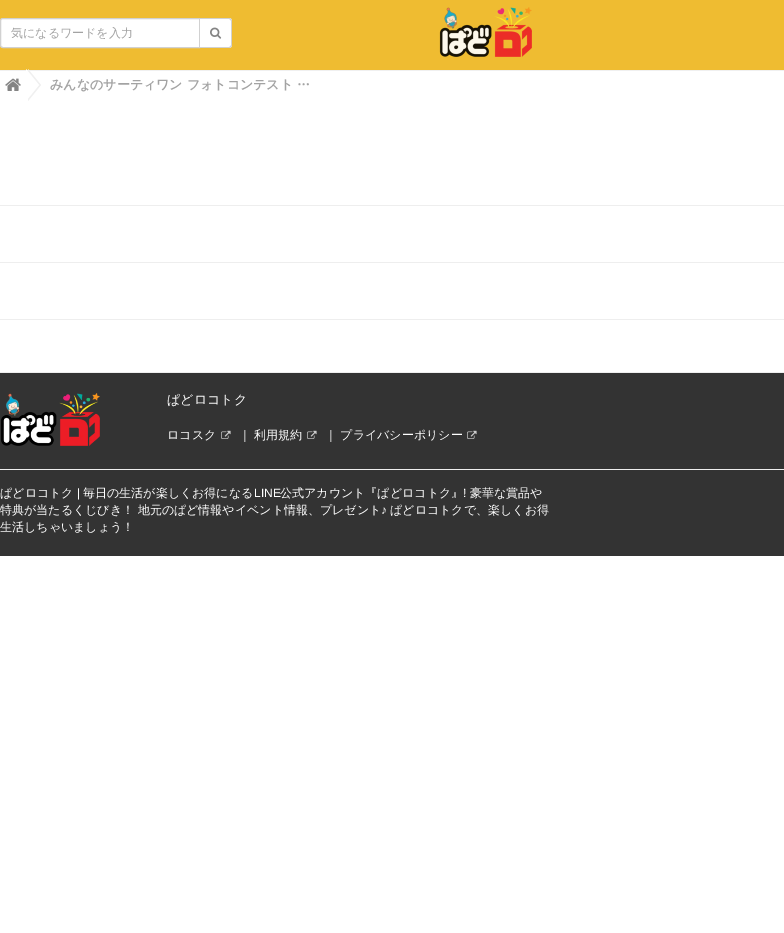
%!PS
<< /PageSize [784 933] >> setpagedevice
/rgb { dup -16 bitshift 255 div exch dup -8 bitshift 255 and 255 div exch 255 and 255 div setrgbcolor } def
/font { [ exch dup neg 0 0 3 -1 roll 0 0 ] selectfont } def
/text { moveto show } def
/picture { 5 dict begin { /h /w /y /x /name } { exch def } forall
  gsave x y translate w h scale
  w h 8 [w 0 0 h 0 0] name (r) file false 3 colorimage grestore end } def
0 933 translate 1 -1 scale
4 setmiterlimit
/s1 { /WenQuanYiZenHei-Medium 12 font 16#A3A3A3 rgb } def
/s2 { /WenQuanYiZenHei-Bold 13 font 16#A3A3A3 rgb } def
/s3 { /WenQuanYiZenHei-Medium 13 font 16#FFFFFF rgb } def
/s4 { /WenQuanYiZenHei-Medium 12 font 16#FFFFFF rgb } def
/s5 { /LiberationSans-Regular 12 font 16#FFFFFF rgb } def
16#FFFFFF rgb
0 0 784 933 rectfill
16#EFBC31 rgb
0 0 784 70 rectfill
16#FFFFFF rgb
3 18.5 moveto 199.5 18.5 lineto 199.5 47.5 lineto 3 47.5 lineto 1.5 47.5 0.5 46.5 0.5 45 curveto 0.5 21 lineto 0.5 19.5 1.5 18.5 3 18.5 curveto closepath gsave fill grestore
16#D1D1D1 rgb
stroke
s1
(気になるワードを入力) 11 37 text
16#FFFFFF rgb
200 18 moveto 229 18 lineto 230.5 18 232 19.5 232 21 curveto 232 45 lineto 232 46.5 230.5 48 229 48 curveto 200 48 lineto closepath fill
16#D1D1D1 rgb
200 18 moveto 229 18 lineto 230.5 18 232 19.5 232 21 curveto 232 45 lineto 232 46.5 230.5 48 229 48 curveto 200 48 lineto closepath 200 19 moveto 229 19 lineto 230 19 231 20 231 21 curveto 231 45 lineto 231 46 230 47 229 47 curveto 200 47 lineto closepath eofill
(pic1.raw) 210 27 12 12 picture
(pic2.raw) 439 7 93 50 picture
16#F0F0F0 rgb
0 70 784 1 rectfill
28 101 moveto 28 69 lineto 41 85 lineto closepath fill
16#FFFFFF rgb
26 101 moveto 26 69 lineto 39 85 lineto closepath fill
(pic3.raw) 5 78 16 13 picture
s2
(みんなのサーティワン フォトコンテスト …) 50 89 text
16#EEEEEE rgb
0 205 784 1 rectfill
0 262 784 1 rectfill
0 319 784 1 rectfill
16#333333 rgb
0 373 784 183 rectfill
16#EEEEEE rgb
0 372 784 1 rectfill
(pic4.raw) 1 393 99 53 picture
s3
(ぱどロコトク) 167 404 text
s4
(ロコスク) 167 439 text
(pic5.raw) 221 430 10 9 picture
(｜ 利用規約) 239 439 text
(pic5.raw) 307 430 10 9 picture
(｜ プライバシーポリシー) 325 439 text
(pic5.raw) 467 430 10 9 picture
16#EEEEEE rgb
0 469 784 1 rectfill
s4
(ぱどロコトク) 0 497 text
s5
(|) 77 497 text
s4
(毎日の生活が楽しくお得になる) 83 497 text
s5
(LINE) 254 497 text
s4
(公式アカウント『ぱどロコトク』) 280 497 text
s5
(!) 463 497 text
s4
(豪華な賞品や) 470 497 text
(特典が当たるくじびき！ 地元のぱど情報やイベント情報、プレゼント) 0 514 text
s5
(♪) 381 514 text
s4
(ぱどロコトクで、楽しくお得) 390 514 text
(生活しちゃいましょう！) 0 531 text
showpage
